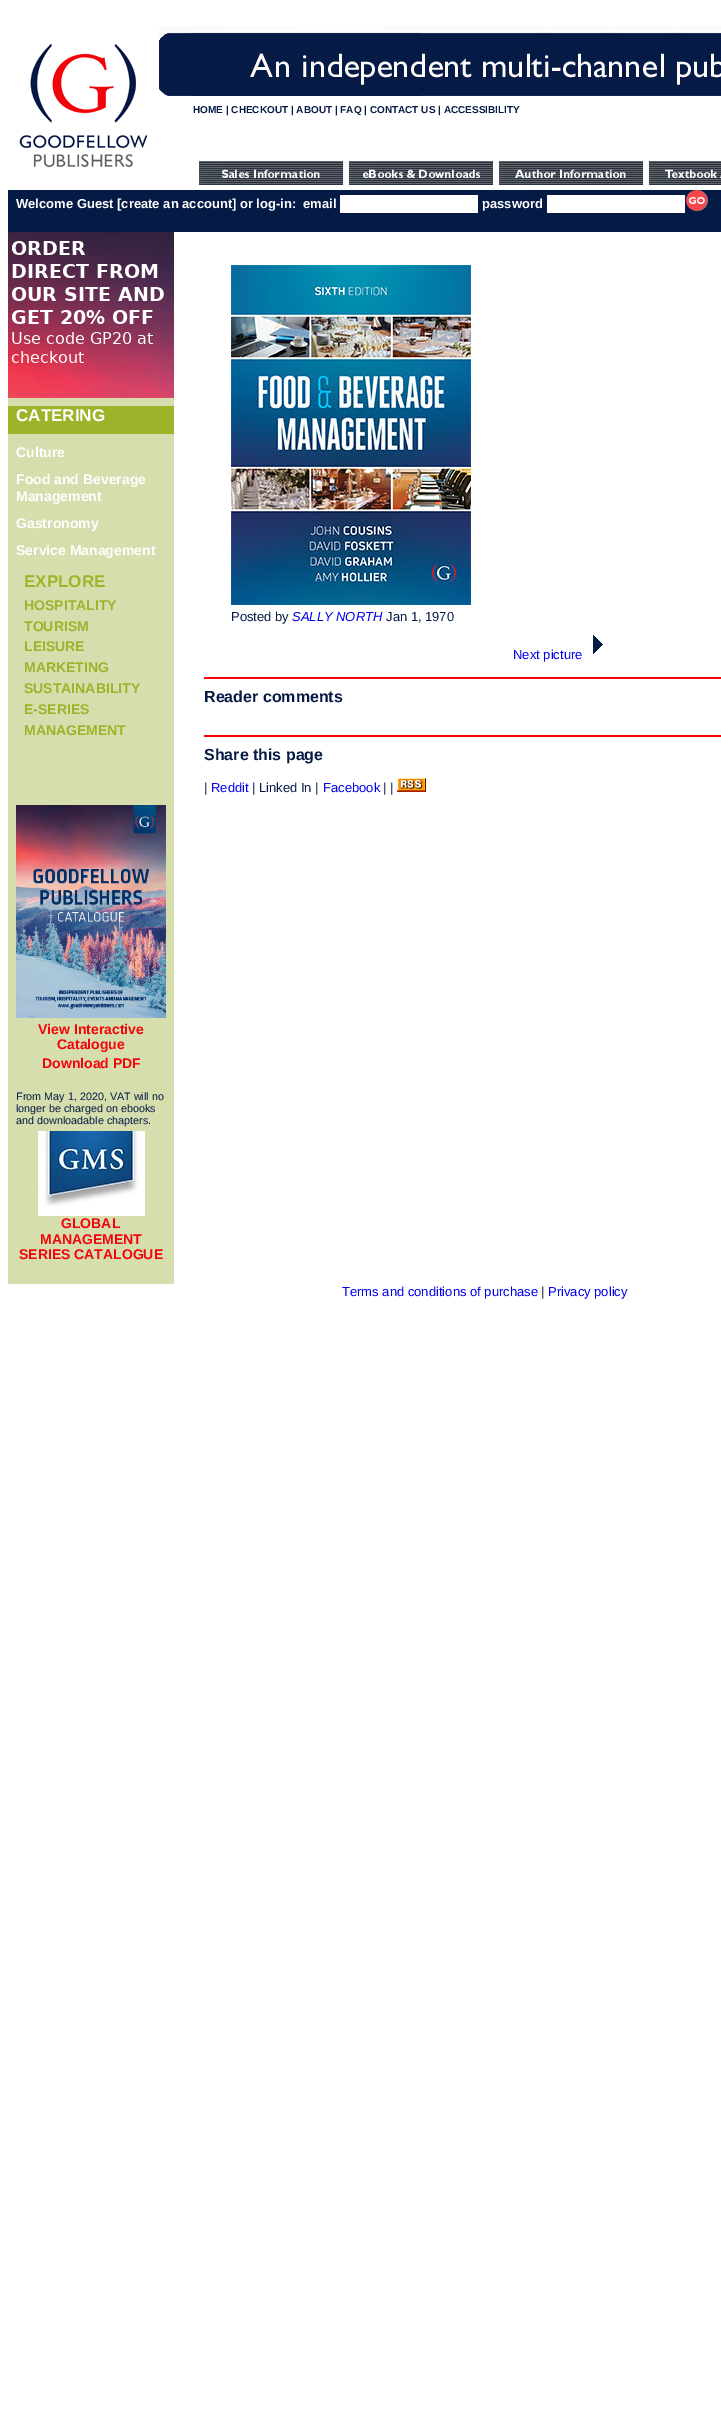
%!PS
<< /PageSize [721 2422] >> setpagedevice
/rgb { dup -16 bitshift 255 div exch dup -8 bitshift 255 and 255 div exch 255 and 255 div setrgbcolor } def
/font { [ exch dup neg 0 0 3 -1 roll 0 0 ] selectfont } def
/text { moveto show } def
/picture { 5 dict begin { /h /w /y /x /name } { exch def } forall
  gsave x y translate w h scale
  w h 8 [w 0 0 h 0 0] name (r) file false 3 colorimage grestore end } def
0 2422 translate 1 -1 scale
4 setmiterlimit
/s1 { /LiberationSans-Bold 10 font 16#051A45 rgb } def
/s2 { /LiberationSans-Bold 13 font 16#FFFFFF rgb } def
/s3 { /LiberationSans-Bold 17 font 16#FFFFFF rgb } def
/s4 { /LiberationSans-Bold 14 font 16#FFFFFF rgb } def
/s5 { /LiberationSans-Bold 17 font 16#9DB329 rgb } def
/s6 { /LiberationSans-Bold 14 font 16#9DB329 rgb } def
/s7 { /LiberationSans-Bold 14 font 16#F4040B rgb } def
/s8 { /LiberationSans-Regular 10.8 font 16#051A45 rgb } def
/s9 { /LiberationSans-Regular 13 font 16#051A45 rgb } def
/s10 { /LiberationSans-Italic 13 font 16#0000EE rgb } def
/s11 { /LiberationSans-Regular 13 font 16#0000EE rgb } def
/s12 { /LiberationSans-Bold 16 font 16#051A45 rgb } def
16#FFFFFF rgb
0 0 721 2422 rectfill
(pic1.raw) 19 43 129 125 picture
(pic2.raw) 159 26 562 70 picture
s1
(HOME | CHECKOUT | ABOUT | FAQ | CONTACT US | ACCESSIBILITY) 193 113 text
(pic3.raw) 199 161 144 24 picture
(pic4.raw) 349 161 144 24 picture
(pic5.raw) 499 161 144 24 picture
(pic6.raw) 649 161 72 24 picture
8 190 713 42 rectfill
s2
(Welcome Guest [create an account] or log-in:) 16 208 text
(email) 303 208 text
340 195 138 18 rectfill
(password) 482 208 text
547 195 138 18 rectfill
(pic7.raw) 686 190 22 21 picture
16#D6DEAD rgb
8 398 166 886 rectfill
(pic8.raw) 8 232 166 166 picture
16#9DB329 rgb
8 406 166 28 rectfill
s3
(CATERING) 16 421 text
s4
(Culture) 16 457 text
(Food and Beverage) 16 484 text
(Management) 16 501 text
(Gastronomy) 16 528 text
(Service Management) 16 555 text
s5
(EXPLORE) 24 587 text
s6
(HOSPITALITY) 24 610 text
(TOURISM) 24 631 text
(LEISURE) 24 651 text
(MARKETING) 24 672 text
(SUSTAINABILITY) 24 693 text
(E-SERIES) 24 714 text
(MANAGEMENT) 24 735 text
(pic9.raw) 16 805 150 213 picture
s7
(View Interactive) 38 1034 text
(Catalogue) 57 1049 text
(Download PDF) 42 1068 text
s8
(From May 1, 2020, VAT will no) 16 1100 text
(longer be charged on ebooks) 16 1112 text
(and downloadable chapters.) 16 1124 text
(pic10.raw) 38 1131 107 85 picture
s7
(GLOBAL) 61 1228 text
(MANAGEMENT) 40 1244 text
(SERIES CATALOGUE) 19 1259 text
(pic11.raw) 231 265 240 340 picture
s9
(Posted by) 231 621 text
s10
(SALLY NORTH) 292 621 text
s9
(Jan 1, 1970) 386 621 text
(pic12.raw) 593 635 10 19 picture
s11
(Next picture) 513 659 text
16#F4040B rgb
204 677 517 2 rectfill
s12
(Reader comments) 204 702 text
16#F4040B rgb
204 735 517 2 rectfill
s12
(Share this page) 204 760 text
s9
(|) 204 792 text
s11
(Reddit) 211 792 text
s9
(| Linked In |) 252 792 text
s11
(Facebook) 323 792 text
s9
(| |) 383 792 text
(pic13.raw) 397 778 29 14 picture
s11
(Terms and conditions of purchase) 342 1296 text
s9
(|) 541 1296 text
s11
(Privacy policy) 548 1296 text
showpage
